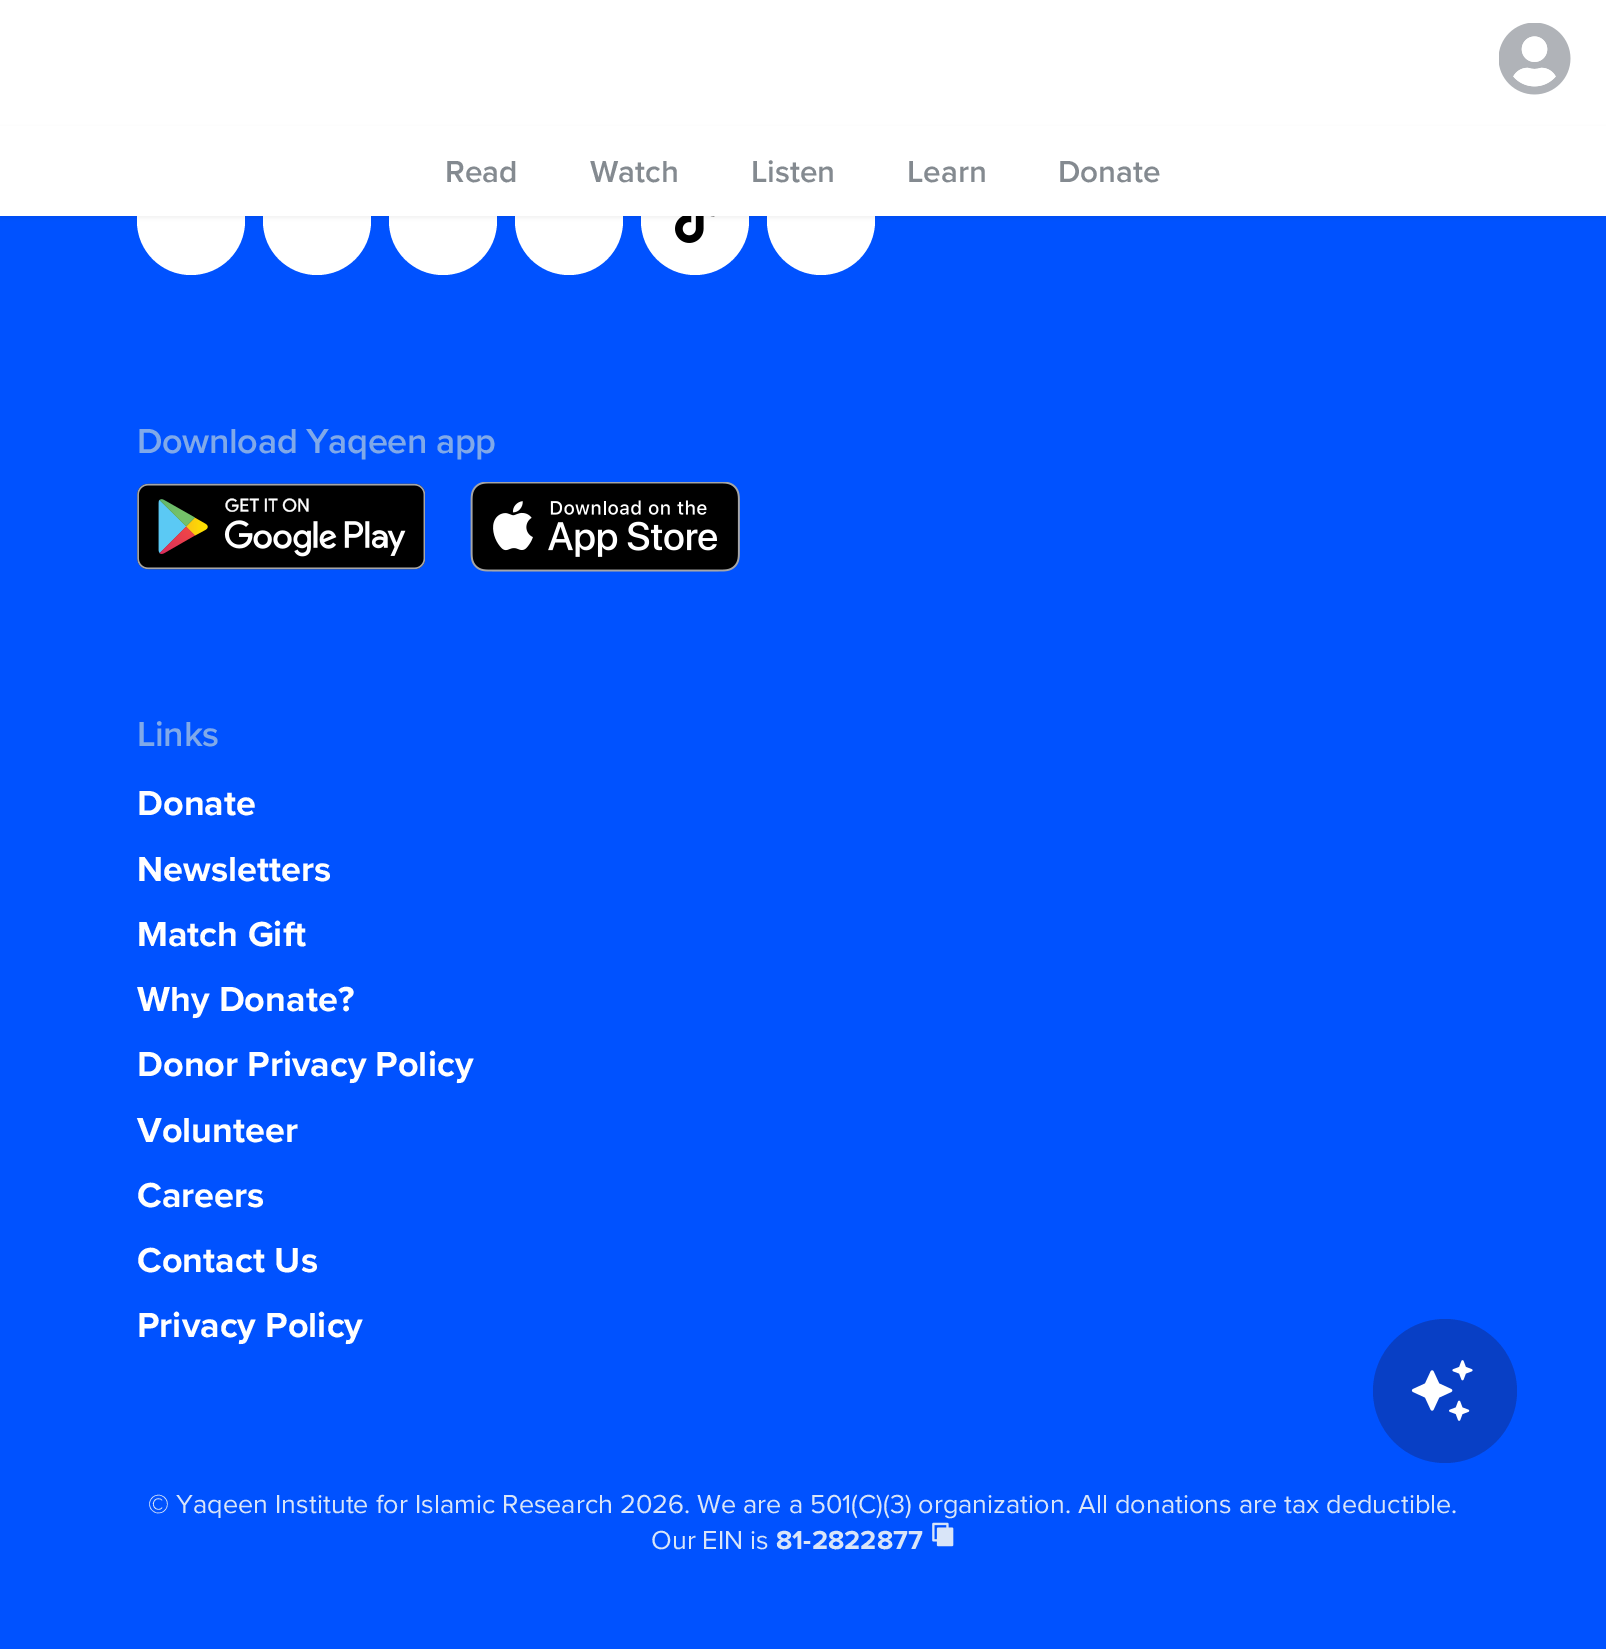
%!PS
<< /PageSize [1606 1649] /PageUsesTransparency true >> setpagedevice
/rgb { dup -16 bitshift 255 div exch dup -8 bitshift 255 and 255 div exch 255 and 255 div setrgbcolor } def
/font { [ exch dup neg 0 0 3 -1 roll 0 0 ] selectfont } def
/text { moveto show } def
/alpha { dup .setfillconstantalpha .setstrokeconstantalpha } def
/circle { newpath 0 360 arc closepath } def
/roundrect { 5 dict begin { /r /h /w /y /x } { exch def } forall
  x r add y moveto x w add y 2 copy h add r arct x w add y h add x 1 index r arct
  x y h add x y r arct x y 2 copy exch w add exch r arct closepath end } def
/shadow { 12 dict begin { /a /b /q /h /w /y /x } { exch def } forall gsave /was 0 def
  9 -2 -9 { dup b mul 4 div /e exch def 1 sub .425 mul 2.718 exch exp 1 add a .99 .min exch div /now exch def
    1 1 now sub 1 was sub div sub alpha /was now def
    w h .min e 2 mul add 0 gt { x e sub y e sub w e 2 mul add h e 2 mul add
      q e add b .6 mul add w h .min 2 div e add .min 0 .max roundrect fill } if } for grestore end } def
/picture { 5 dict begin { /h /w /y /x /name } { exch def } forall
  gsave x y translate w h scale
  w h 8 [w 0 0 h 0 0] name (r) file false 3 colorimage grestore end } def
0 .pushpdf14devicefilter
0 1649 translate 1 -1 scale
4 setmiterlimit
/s1 { /ProximaNova-SemiBold 31.5 font 16#848A90 rgb } def
/s2 { /ProximaNova-Bold 36 font 16#FFFFFF rgb } def
/s3 { /ProximaNova-Regular 27 font 16#D9E5F8 rgb } def
/s4 { /ProximaNova-Bold 27 font 16#D9E5F8 rgb } def
16#0052FF rgb
0 0 1606 1649 rectfill
16#FFFFFF rgb
0 0 1606 126 rectfill
(pic1.raw) 1499 23 72 72 picture
191 221 54 circle fill
317 221 54 circle fill
443 221 54 circle fill
569 221 54 circle fill
695 221 54 circle fill
(pic2.raw) 675 216 40 27 picture
821 221 54 circle fill
16#000000 rgb
0 128 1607 90 0 2 0.05 shadow
16#FFFFFF rgb
0 126 1606 90 rectfill
s1
(Read) 445 182 text
(Watch) 590 182 text
(Listen) 751 182 text
(Learn) 907 182 text
(Donate) 1058 182 text
/ProximaNova-SemiBold 36 font
16#80A9E9 rgb
137 453 moveto -0.4 0 (Download Yaqeen app) ashow
(pic3.raw) 137 483 288 87 picture
(pic4.raw) 470 482 270 90 picture
137 746 moveto -0.4 0 (Links) ashow
s2
(Donate) 137 815 text
(Newsletters) 137 881 text
(Match Gift) 137 946 text
(Why Donate?) 137 1011 text
(Donor Privacy Policy) 137 1076 text
(Volunteer) 137 1142 text
(Careers) 137 1207 text
(Contact Us) 137 1272 text
(Privacy Policy) 137 1337 text
s3
(© Yaqeen Institute for Islamic Research 2026. We are a 501\(C\)\(3\) organization. All donations are tax deductible.) 148 1513 text
(Our EIN is) 651 1549 text
s4
(81-2822877) 776 1549 text
(pic5.raw) 932 1522 22 25 picture
16#083FC5 rgb
1445 1391 72 circle fill
(pic6.raw) 1411 1360 62 61 picture
.poppdf14devicefilter showpage
